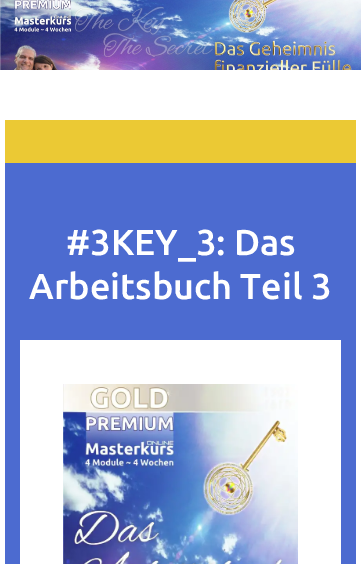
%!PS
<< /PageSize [361 564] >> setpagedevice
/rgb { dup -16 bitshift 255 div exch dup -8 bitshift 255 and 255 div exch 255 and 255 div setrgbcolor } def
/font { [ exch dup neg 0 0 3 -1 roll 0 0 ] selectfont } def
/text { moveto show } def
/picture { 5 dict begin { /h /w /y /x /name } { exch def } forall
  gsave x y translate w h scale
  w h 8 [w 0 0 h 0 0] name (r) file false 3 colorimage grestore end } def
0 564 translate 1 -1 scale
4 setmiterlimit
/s1 { /Ubuntu-Medium 36 font 16#FFFFFF rgb } def
16#FFFFFF rgb
0 0 361 564 rectfill
(pic1.raw) 0 0 361 70 picture
16#EBC934 rgb
5 120 351 43 rectfill
16#4C6BD0 rgb
5 163 351 401 rectfill
s1
(#3KEY_3: Das) 66 255 text
(Arbeitsbuch Teil 3) 29 299 text
20 340 321 224 rectfill
(pic2.raw) 63 384 235 180 picture
showpage
